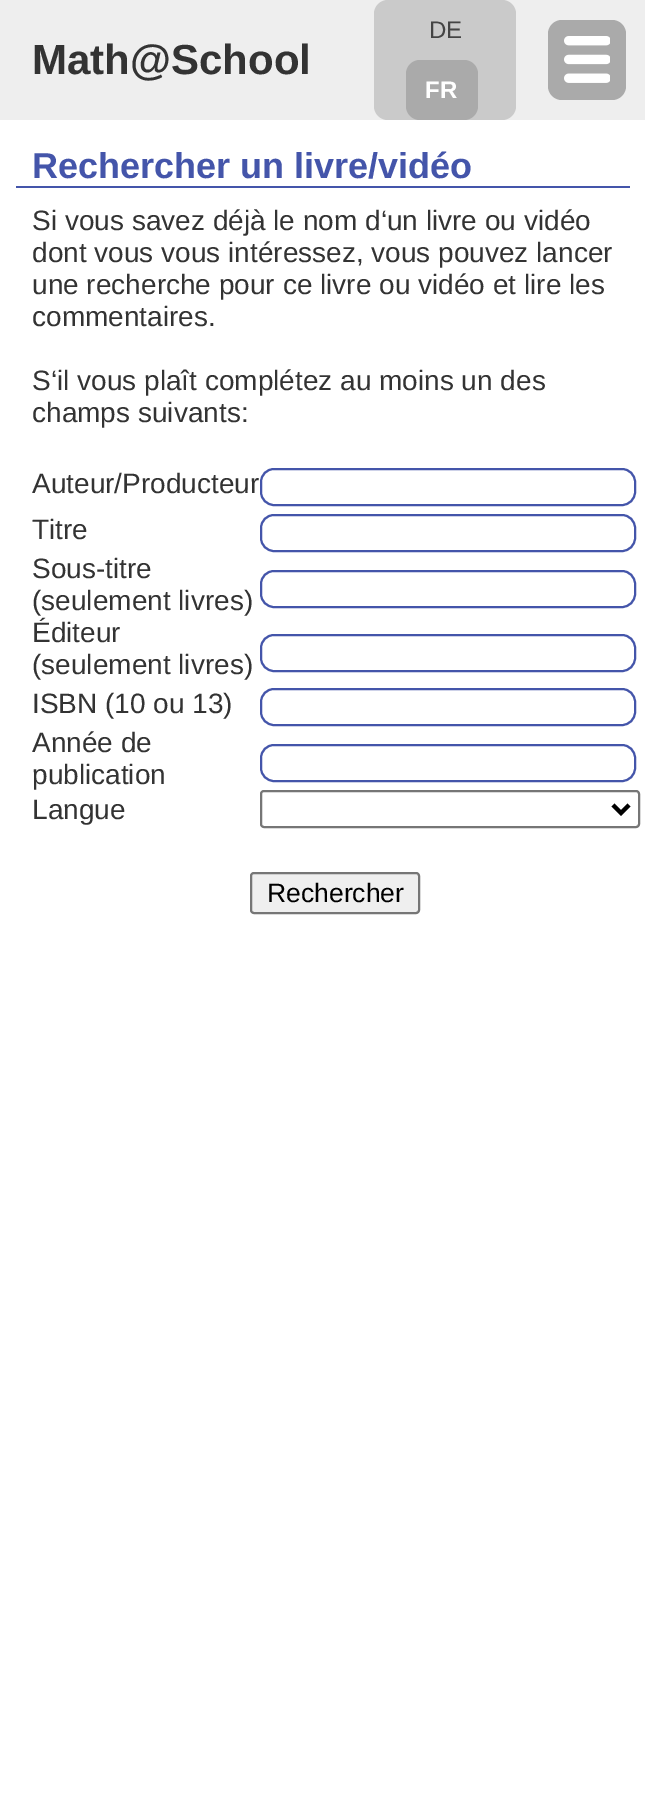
%!PS
<< /PageSize [645 1803] >> setpagedevice
/rgb { dup -16 bitshift 255 div exch dup -8 bitshift 255 and 255 div exch 255 and 255 div setrgbcolor } def
/font { [ exch dup neg 0 0 3 -1 roll 0 0 ] selectfont } def
/text { moveto show } def
/roundrect { 5 dict begin { /r /h /w /y /x } { exch def } forall
  x r add y moveto x w add y 2 copy h add r arct x w add y h add x 1 index r arct
  x y h add x y r arct x y 2 copy exch w add exch r arct closepath end } def
/picture { 5 dict begin { /h /w /y /x /name } { exch def } forall
  gsave x y translate w h scale
  w h 8 [w 0 0 h 0 0] name (r) file false 3 colorimage grestore end } def
0 1803 translate 1 -1 scale
4 setmiterlimit
/s1 { /LiberationSans-Bold 42 font 16#333333 rgb } def
/s2 { /LiberationSans-Regular 24 font 16#444444 rgb } def
/s3 { /LiberationSans-Bold 24 font 16#FFFFFF rgb } def
/s4 { /LiberationSans-Bold 36 font 16#4455AA rgb } def
/s5 { /LiberationSans-Regular 28 font 16#333333 rgb } def
/s6 { /LiberationSans-Regular 26.5 font 16#000000 rgb } def
16#FFFFFF rgb
0 0 645 1803 rectfill
16#EEEEEE rgb
0 0 645 120 rectfill
s1
(Math@School) 32 74 text
16#CACACA rgb
374 0 142 120 14 roundrect fill
s2
(DE) 429 38 text
16#AAAAAA rgb
406 60 72 60 14 roundrect fill
s3
(FR) 425 98 text
16#AAAAAA rgb
548 20 78 80 14 roundrect fill
(pic1.raw) 564 36 46 47 picture
16#4455AA rgb
16 186 614 2 rectfill
s4
(Rechercher un livre/vidéo) 32 178 text
s5
(Si vous savez déjà le nom d‘un livre ou vidéo) 32 230 text
(dont vous vous intéressez, vous pouvez lancer) 32 262 text
(une recherche pour ce livre ou vidéo et lire les) 32 294 text
(commentaires.) 32 326 text
(S‘il vous plaît complétez au moins un des) 32 390 text
(champs suivants:) 32 422 text
(Auteur/Producteur) 32 493 text
16#4455AA rgb
2 setlinewidth
261 469 374 36 13 roundrect stroke
s5
(Titre) 32 539 text
16#4455AA rgb
261 515 374 36 13 roundrect stroke
s5
(Sous-titre) 32 578 text
(\(seulement livres\)) 32 610 text
16#4455AA rgb
261 571 374 36 13 roundrect stroke
s5
(Éditeur) 32 642 text
(\(seulement livres\)) 32 674 text
16#4455AA rgb
261 635 374 36 13 roundrect stroke
s5
(ISBN \(10 ou 13\)) 32 713 text
16#4455AA rgb
261 689 374 36 13 roundrect stroke
s5
(Année de) 32 752 text
(publication) 32 784 text
16#4455AA rgb
261 745 374 36 13 roundrect stroke
s5
(Langue) 32 819 text
16#767676 rgb
261 791 378 36 3 roundrect stroke
16#000000 rgb
4 setlinewidth
613 805 moveto 621 813 lineto 629 805 lineto stroke
16#EFEFEF rgb
251 873 168 40 3 roundrect gsave fill grestore
16#767676 rgb
2 setlinewidth
stroke
s6
(Rechercher) 267 902 text
showpage
